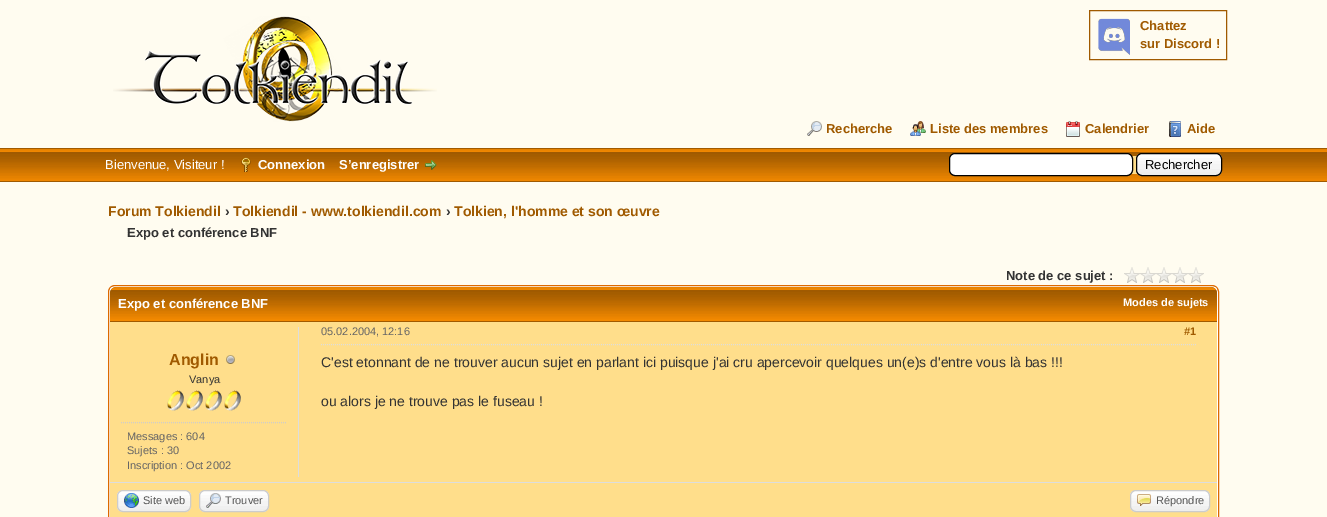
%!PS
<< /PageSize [1327 517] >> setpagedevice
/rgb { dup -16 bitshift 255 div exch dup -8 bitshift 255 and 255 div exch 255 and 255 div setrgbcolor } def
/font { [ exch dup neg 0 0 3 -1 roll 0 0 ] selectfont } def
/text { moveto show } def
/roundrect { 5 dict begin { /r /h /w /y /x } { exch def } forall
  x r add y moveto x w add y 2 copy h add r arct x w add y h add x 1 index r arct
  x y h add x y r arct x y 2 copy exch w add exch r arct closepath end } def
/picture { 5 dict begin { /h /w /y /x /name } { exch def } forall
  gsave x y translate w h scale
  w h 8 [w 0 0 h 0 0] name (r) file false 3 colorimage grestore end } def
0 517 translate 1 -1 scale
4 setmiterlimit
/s1 { /LiberationSans-Bold 13 font 16#A05A00 rgb } def
/s2 { /LiberationSans-Regular 13 font 16#FFFFFF rgb } def
/s3 { /LiberationSans-Bold 13 font 16#FFFFFF rgb } def
/s4 { /LiberationSans-Regular 13 font 16#000000 rgb } def
/s5 { /LiberationSans-Bold 14 font 16#A05A00 rgb } def
/s6 { /LiberationSans-Bold 14 font 16#333333 rgb } def
/s7 { /LiberationSans-Bold 13 font 16#333333 rgb } def
/s8 { /LiberationSans-Bold 11 font 16#FFFFFF rgb } def
/s9 { /LiberationSans-Bold 16 font 16#A05A00 rgb } def
/s10 { /LiberationSans-Regular 11 font 16#333333 rgb } def
/s11 { /LiberationSans-Regular 11 font 16#666666 rgb } def
/s12 { /LiberationSans-Bold 11 font 16#A05A00 rgb } def
/s13 { /LiberationSans-Regular 14 font 16#333333 rgb } def
/s14 { /LiberationSans-Regular 11 font 16#555555 rgb } def
16#FFFCF0 rgb
0 0 1327 517 rectfill
(pic1.raw) 113 16 324 106 picture
(pic2.raw) 1098 18 32 37 picture
16#A05A00 rgb
1089.5 10.5 137 49 rectstroke
s1
(Chattez) 1140 30 text
(sur Discord !) 1140 48 text
(pic3.raw) 807 121 15 15 picture
(Recherche) 826 133 text
(pic4.raw) 910 121 16 15 picture
(Liste des membres) 930 133 text
(pic5.raw) 1066 121 14 16 picture
(Calendrier) 1085 133 text
(pic6.raw) 1169 121 12 16 picture
(Aide) 1187 133 text
0 148 1327 1 rectfill
(pic7.raw) 0 149 1327 32 picture
0 181 1327 1 rectfill
s2
(Bienvenue, Visiteur !) 105 169 text
(pic8.raw) 241 157 10 15 picture
s3
(Connexion) 258 169 text
(S’enregistrer) 339 169 text
(pic9.raw) 425 160 12 10 picture
16#FFDE8B rgb
949 156 273 18 6 roundrect fill
16#FFFFFF rgb
949.5 153.5 183 22 5.5 roundrect gsave fill grestore
16#000000 rgb
stroke
(pic10.raw) 1136 154 86 22 picture
1136.5 153.5 85 22 5.5 roundrect stroke
s4
(Rechercher) 1145 169 text
s5
(Forum Tolkiendil) 108 216 text
s6
(›) 225 216 text
s5
(Tolkiendil - www.tolkiendil.com) 233 216 text
s6
(›) 446 216 text
s5
(Tolkien, l'homme et son œuvre) 454 216 text
s7
(Expo et conférence BNF) 127 237 text
(Note de ce sujet :) 1006 280 text
(pic11.raw) 1124 267 80 16 picture
16#FFFFFF rgb
108.5 285.5 1110 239 6.5 roundrect gsave fill grestore
16#DD6900 rgb
stroke
(pic12.raw) 110 287 1107 34 picture
16#A05A00 rgb
110 321 1107 1 rectfill
s3
(Expo et conférence BNF) 118 308 text
s8
(Modes de sujets) 1123 306 text
16#FFDE8B rgb
110 322 1107 195 rectfill
16#DDDDDD rgb
298 327 1 150 rectfill
s9
(Anglin) 169 365 text
(pic13.raw) 226 355 9 9 picture
s10
(Vanya) 189 383 text
(pic14.raw) 167 390 17 21 picture
(pic14.raw) 186 390 17 21 picture
(pic14.raw) 205 390 17 21 picture
(pic14.raw) 224 390 17 21 picture
16#CCCCCC rgb
[1 1] 0 setdash
121 422.5 moveto 287 422.5 lineto stroke
s11
(Messages : 604) 127 440 text
(Sujets : 30) 127 454 text
(Inscription : Oct 2002) 127 469 text
16#DDDDDD rgb
321 344.5 moveto 1196 344.5 lineto stroke
s11
(05.02.2004, 12:16) 321 335 text
s12
(#1) 1184 335 text
s13
(C'est etonnant de ne trouver aucun sujet en parlant ici puisque j'ai cru apercevoir quelques un\(e\)s d'entre vous là bas !!!) 321 367 text
(ou alors je ne trouve pas le fuseau !) 321 406 text
16#DDDDDD rgb
110 482 1107 1 rectfill
(pic15.raw) 117 491 74 21 picture
16#CCCCCC rgb
[] 0 setdash
117.5 490.5 73 21 5.5 roundrect stroke
(pic16.raw) 124 493 15 15 picture
s14
(Site web) 143 504 text
(pic17.raw) 199 491 70 21 picture
16#CCCCCC rgb
199.5 490.5 69 21 5.5 roundrect stroke
(pic18.raw) 206 493 15 15 picture
s14
(Trouver) 225 504 text
(pic19.raw) 1130 491 80 21 picture
16#CCCCCC rgb
1130.5 490.5 79 21 5.5 roundrect stroke
(pic20.raw) 1137 494 14 12 picture
s14
(Répondre) 1156 504 text
showpage
